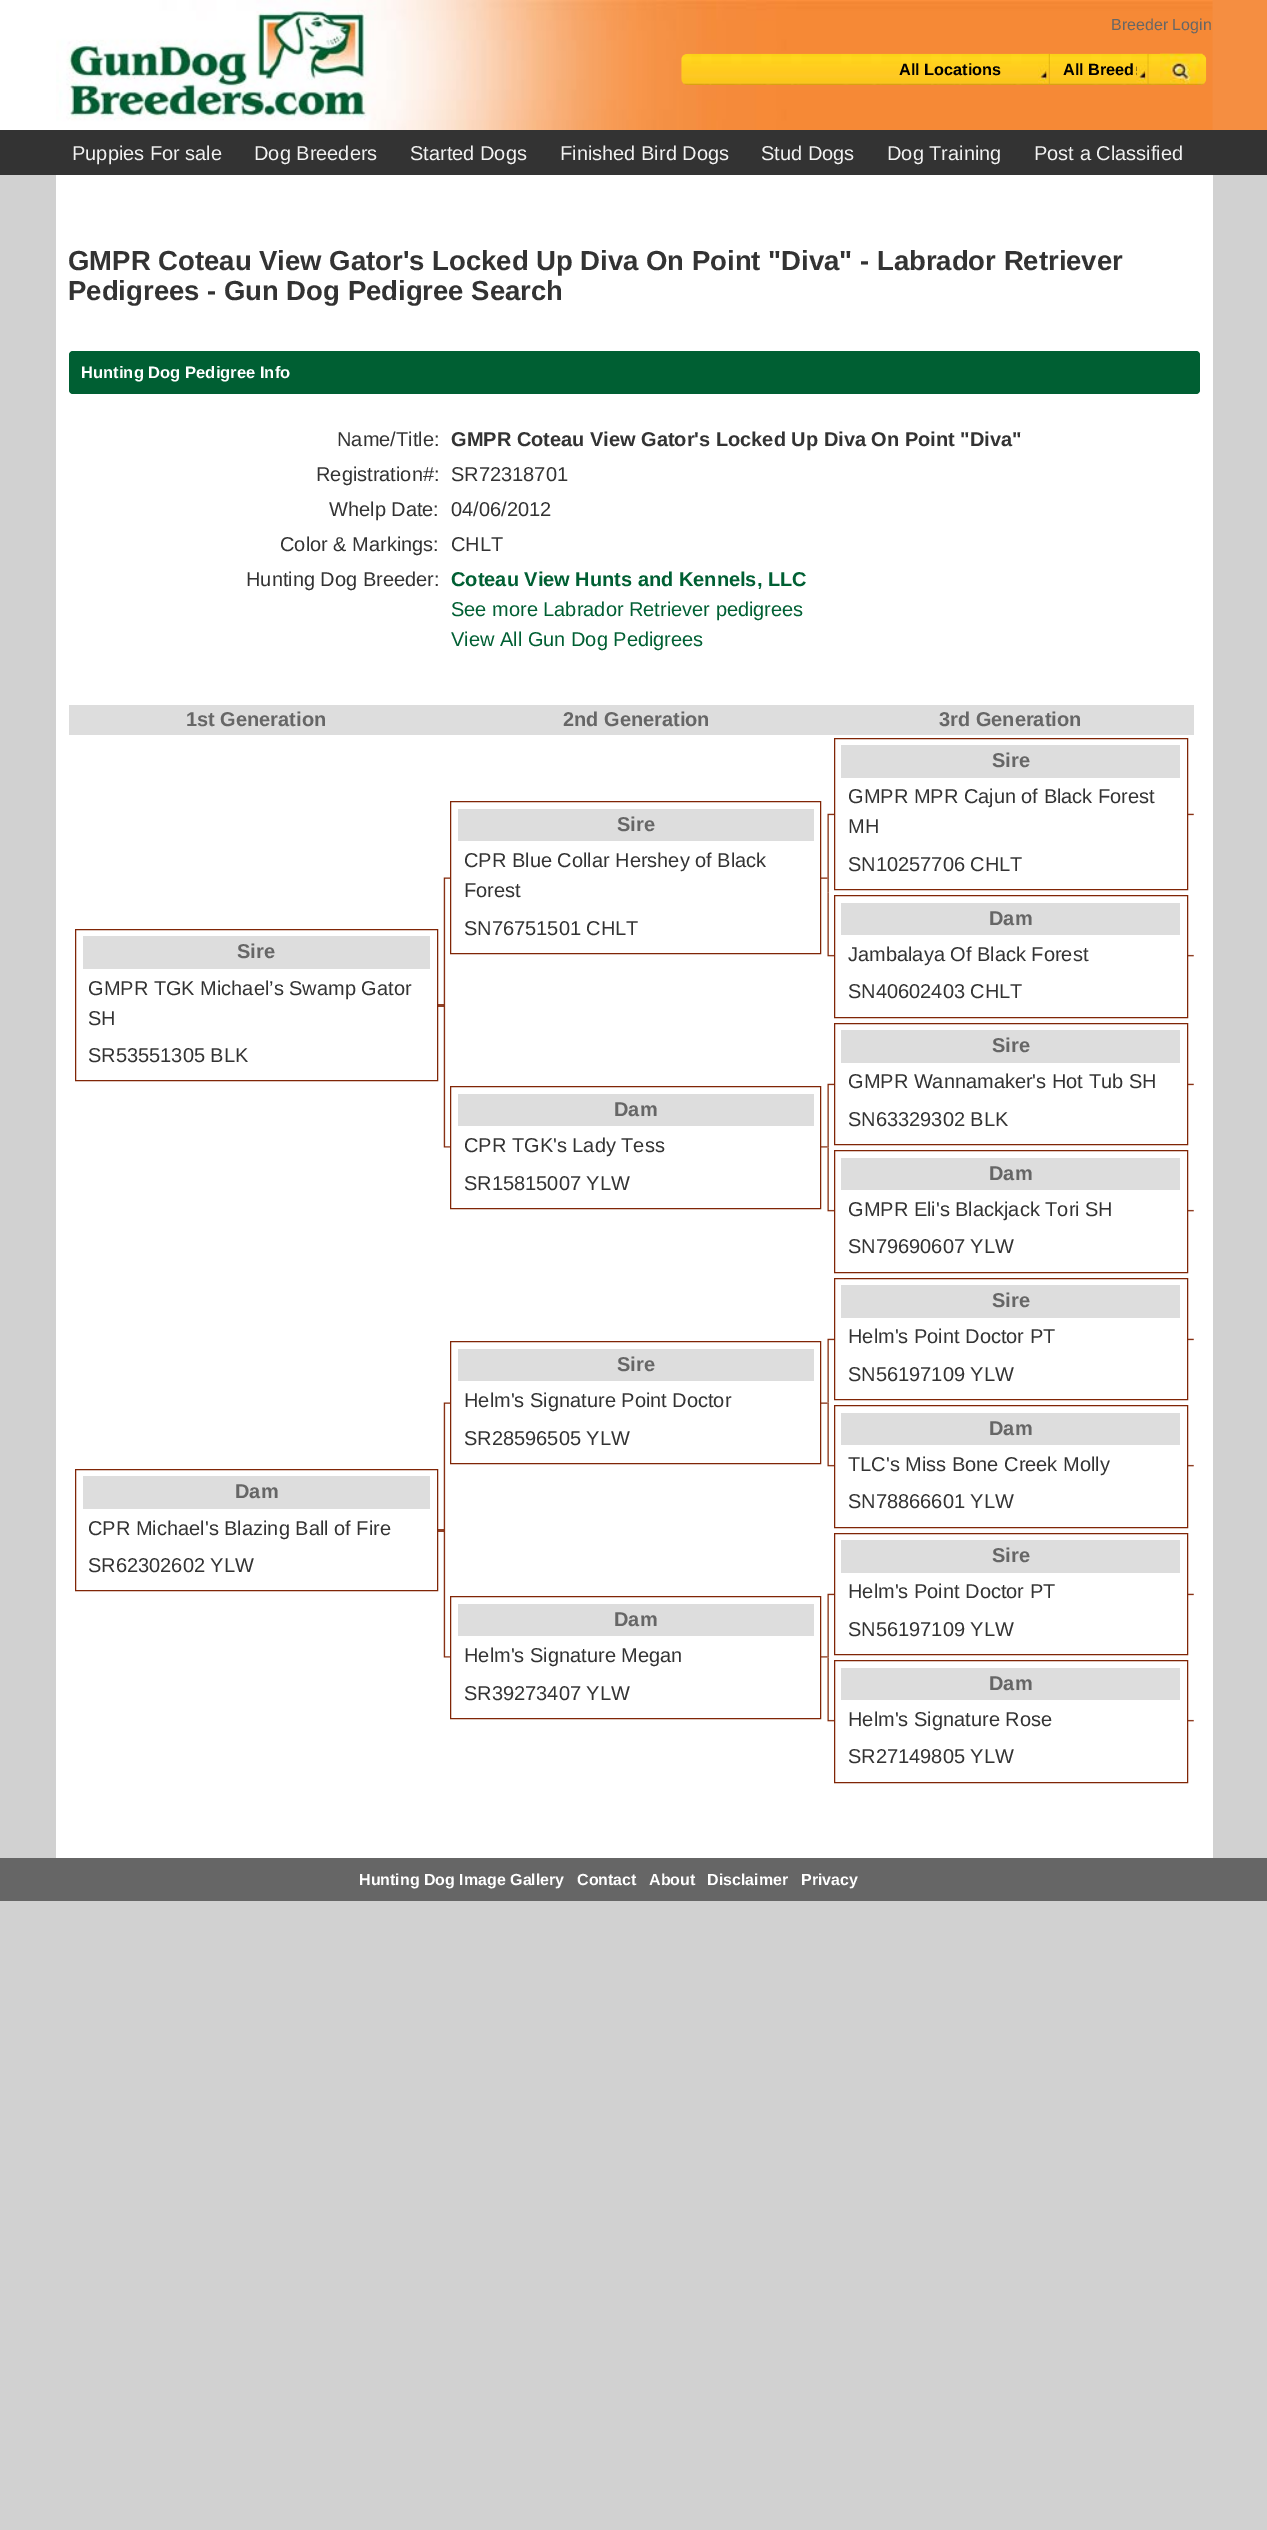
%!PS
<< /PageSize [1267 2530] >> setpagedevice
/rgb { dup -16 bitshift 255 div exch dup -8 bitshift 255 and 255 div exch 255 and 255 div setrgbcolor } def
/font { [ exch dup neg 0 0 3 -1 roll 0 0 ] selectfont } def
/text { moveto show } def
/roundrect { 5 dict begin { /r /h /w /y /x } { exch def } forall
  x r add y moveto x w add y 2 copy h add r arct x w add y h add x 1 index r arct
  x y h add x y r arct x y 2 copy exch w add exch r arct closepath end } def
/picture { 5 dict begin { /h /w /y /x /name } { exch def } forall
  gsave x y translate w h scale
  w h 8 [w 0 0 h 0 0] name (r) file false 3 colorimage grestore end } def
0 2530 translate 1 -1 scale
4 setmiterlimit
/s1 { /LiberationSans-Regular 16 font 16#666666 rgb } def
/s2 { /LiberationSans-Bold 16.25 font 16#000000 rgb } def
/s3 { /LiberationSans-Regular 20 font 16#F2F2F2 rgb } def
/s4 { /LiberationSans-Bold 27.5 font 16#333333 rgb } def
/s5 { /LiberationSans-Bold 16.6 font 16#FFFFFF rgb } def
/s6 { /LiberationSans-Regular 20 font 16#333333 rgb } def
/s7 { /LiberationSans-Bold 20 font 16#333333 rgb } def
/s8 { /LiberationSans-Bold 20 font 16#005F33 rgb } def
/s9 { /LiberationSans-Regular 20 font 16#005F33 rgb } def
/s10 { /LiberationSans-Bold 20 font 16#666666 rgb } def
/s11 { /LiberationSans-Bold 16 font 16#FFFFFF rgb } def
16#D1D1D1 rgb
0 0 1267 2530 rectfill
16#F58E41 rgb
1212 0 55 130 rectfill
16#FFFFFF rgb
0 0 57 130 rectfill
(pic1.raw) 56 0 1157 130 picture
s1
(Breeder Login) 1111 30 text
(pic2.raw) 681 53 526 32 picture
s2
(All Locations) 899 75 text
(pic3.raw) 1038 53 12 32 picture
(All Breed) 1063 75 text
(pic4.raw) 1136 53 13 32 picture
(pic5.raw) 1160 53 43 32 picture
16#333333 rgb
0 130 1267 45 rectfill
s3
(Puppies For sale) 72 160 text
(Dog Breeders) 254 160 text
(Started Dogs) 410 160 text
(Finished Bird Dogs) 560 160 text
(Stud Dogs) 761 160 text
(Dog Training) 887 160 text
(Post a Classified) 1034 160 text
16#FFFFFF rgb
56 175 1157 1683 rectfill
s4
(GMPR Coteau View Gator's Locked Up Diva On Point "Diva" - Labrador Retriever) 68 270 text
(Pedigrees - Gun Dog Pedigree Search) 68 300 text
16#005F33 rgb
69 351 1131 43 4 roundrect fill
s5
(Hunting Dog Pedigree Info) 81 378 text
s6
(Name/Title:) 337 446 text
s7
(GMPR Coteau View Gator's Locked Up Diva On Point "Diva") 451 446 text
s6
(Registration#:) 316 481 text
(SR72318701) 451 481 text
(Whelp Date:) 329 516 text
(04/06/2012) 451 516 text
(Color & Markings:) 280 551 text
(CHLT) 451 551 text
(Hunting Dog Breeder:) 246 586 text
s8
(Coteau View Hunts and Kennels, LLC) 451 586 text
s9
(See more Labrador Retriever pedigrees) 451 616 text
(View All Gun Dog Pedigrees) 451 646 text
16#DDDDDD rgb
69 705 1125 30 rectfill
s10
(1st Generation) 186 726 text
(2nd Generation) 563 726 text
(3rd Generation) 939 726 text
16#914126 rgb
438 1004 6 3 rectfill
(pic6.raw) 443 877 385 143 picture
16#FFFFFF rgb
451 877 369 2 rectfill
16#802506 rgb
450.5 801.5 370 152 rectstroke
16#DDDDDD rgb
458 809 356 32 rectfill
s10
(Sire) 617 831 text
s6
(CPR Blue Collar Hershey of Black) 464 867 text
(Forest) 464 897 text
(SN76751501 CHLT) 464 935 text
(pic7.raw) 827 813 367 80 picture
16#FFFFFF rgb
835 813 352 3 rectfill
16#802506 rgb
834.5 738.5 353 151 rectstroke
16#DDDDDD rgb
841 745 339 33 rectfill
s10
(Sire) 992 767 text
s6
(GMPR MPR Cajun of Black Forest) 848 803 text
(MH) 848 833 text
(SN10257706 CHLT) 848 871 text
16#802506 rgb
75.5 929.5 362 151 rectstroke
16#DDDDDD rgb
83 936 347 33 rectfill
s10
(Sire) 237 958 text
s6
(GMPR TGK Michael’s Swamp Gator) 88 995 text
(SH) 88 1025 text
(SR53551305 BLK) 88 1062 text
(pic8.raw) 827 892 367 65 picture
16#FFFFFF rgb
835 954 352 3 rectfill
16#802506 rgb
834.5 895.5 353 122 rectstroke
16#DDDDDD rgb
841 903 339 32 rectfill
s10
(Dam) 989 925 text
s6
(Jambalaya Of Black Forest) 848 961 text
(SN40602403 CHLT) 848 998 text
(pic10.raw) 443 1020 385 128 picture
(pic9.raw) 827 1083 367 65 picture
16#FFFFFF rgb
835 1083 352 3 rectfill
16#802506 rgb
834.5 1023.5 353 121 rectstroke
16#DDDDDD rgb
841 1030 339 33 rectfill
s10
(Sire) 992 1052 text
s6
(GMPR Wannamaker's Hot Tub SH) 848 1088 text
(SN63329302 BLK) 848 1126 text
16#FFFFFF rgb
451 1146 369 2 rectfill
16#802506 rgb
450.5 1086.5 370 122 rectstroke
16#DDDDDD rgb
458 1094 356 32 rectfill
s10
(Dam) 614 1116 text
s6
(CPR TGK's Lady Tess) 464 1152 text
(SR15815007 YLW) 464 1190 text
(pic11.raw) 827 1147 367 65 picture
16#FFFFFF rgb
835 1209 352 3 rectfill
16#802506 rgb
834.5 1150.5 353 122 rectstroke
16#DDDDDD rgb
841 1158 339 32 rectfill
s10
(Dam) 989 1180 text
s6
(GMPR Eli's Blackjack Tori SH) 848 1216 text
(SN79690607 YLW) 848 1253 text
16#914126 rgb
438 1529 6 3 rectfill
(pic13.raw) 443 1402 385 128 picture
(pic12.raw) 827 1338 367 65 picture
16#FFFFFF rgb
835 1338 352 3 rectfill
16#802506 rgb
834.5 1278.5 353 121 rectstroke
16#DDDDDD rgb
841 1285 339 33 rectfill
s10
(Sire) 992 1307 text
s6
(Helm's Point Doctor PT) 848 1343 text
(SN56197109 YLW) 848 1381 text
16#FFFFFF rgb
451 1402 369 2 rectfill
16#802506 rgb
450.5 1341.5 370 122 rectstroke
16#DDDDDD rgb
458 1349 356 32 rectfill
s10
(Sire) 617 1371 text
s6
(Helm's Signature Point Doctor) 464 1407 text
(SR28596505 YLW) 464 1445 text
16#802506 rgb
75.5 1469.5 362 121 rectstroke
16#DDDDDD rgb
83 1476 347 33 rectfill
s10
(Dam) 235 1498 text
s6
(CPR Michael's Blazing Ball of Fire) 88 1535 text
(SR62302602 YLW) 88 1572 text
(pic14.raw) 827 1402 367 65 picture
16#FFFFFF rgb
835 1464 352 3 rectfill
16#802506 rgb
834.5 1405.5 353 122 rectstroke
16#DDDDDD rgb
841 1413 339 32 rectfill
s10
(Dam) 989 1435 text
s6
(TLC's Miss Bone Creek Molly) 848 1471 text
(SN78866601 YLW) 848 1508 text
(pic15.raw) 443 1530 385 128 picture
(pic9.raw) 827 1593 367 65 picture
16#FFFFFF rgb
835 1593 352 3 rectfill
16#802506 rgb
834.5 1533.5 353 121 rectstroke
16#DDDDDD rgb
841 1540 339 33 rectfill
s10
(Sire) 992 1562 text
s6
(Helm's Point Doctor PT) 848 1598 text
(SN56197109 YLW) 848 1636 text
16#FFFFFF rgb
451 1656 369 2 rectfill
16#802506 rgb
450.5 1596.5 370 122 rectstroke
16#DDDDDD rgb
458 1604 356 32 rectfill
s10
(Dam) 614 1626 text
s6
(Helm's Signature Megan) 464 1662 text
(SR39273407 YLW) 464 1700 text
(pic11.raw) 827 1657 367 65 picture
16#FFFFFF rgb
835 1719 352 3 rectfill
16#802506 rgb
834.5 1660.5 353 122 rectstroke
16#DDDDDD rgb
841 1668 339 32 rectfill
s10
(Dam) 989 1690 text
s6
(Helm's Signature Rose) 848 1726 text
(SR27149805 YLW) 848 1763 text
16#666666 rgb
0 1858 1267 43 rectfill
s11
(Hunting Dog Image Gallery) 359 1885 text
(Contact) 577 1885 text
(About) 649 1885 text
(Disclaimer) 707 1885 text
(Privacy) 801 1885 text
showpage
